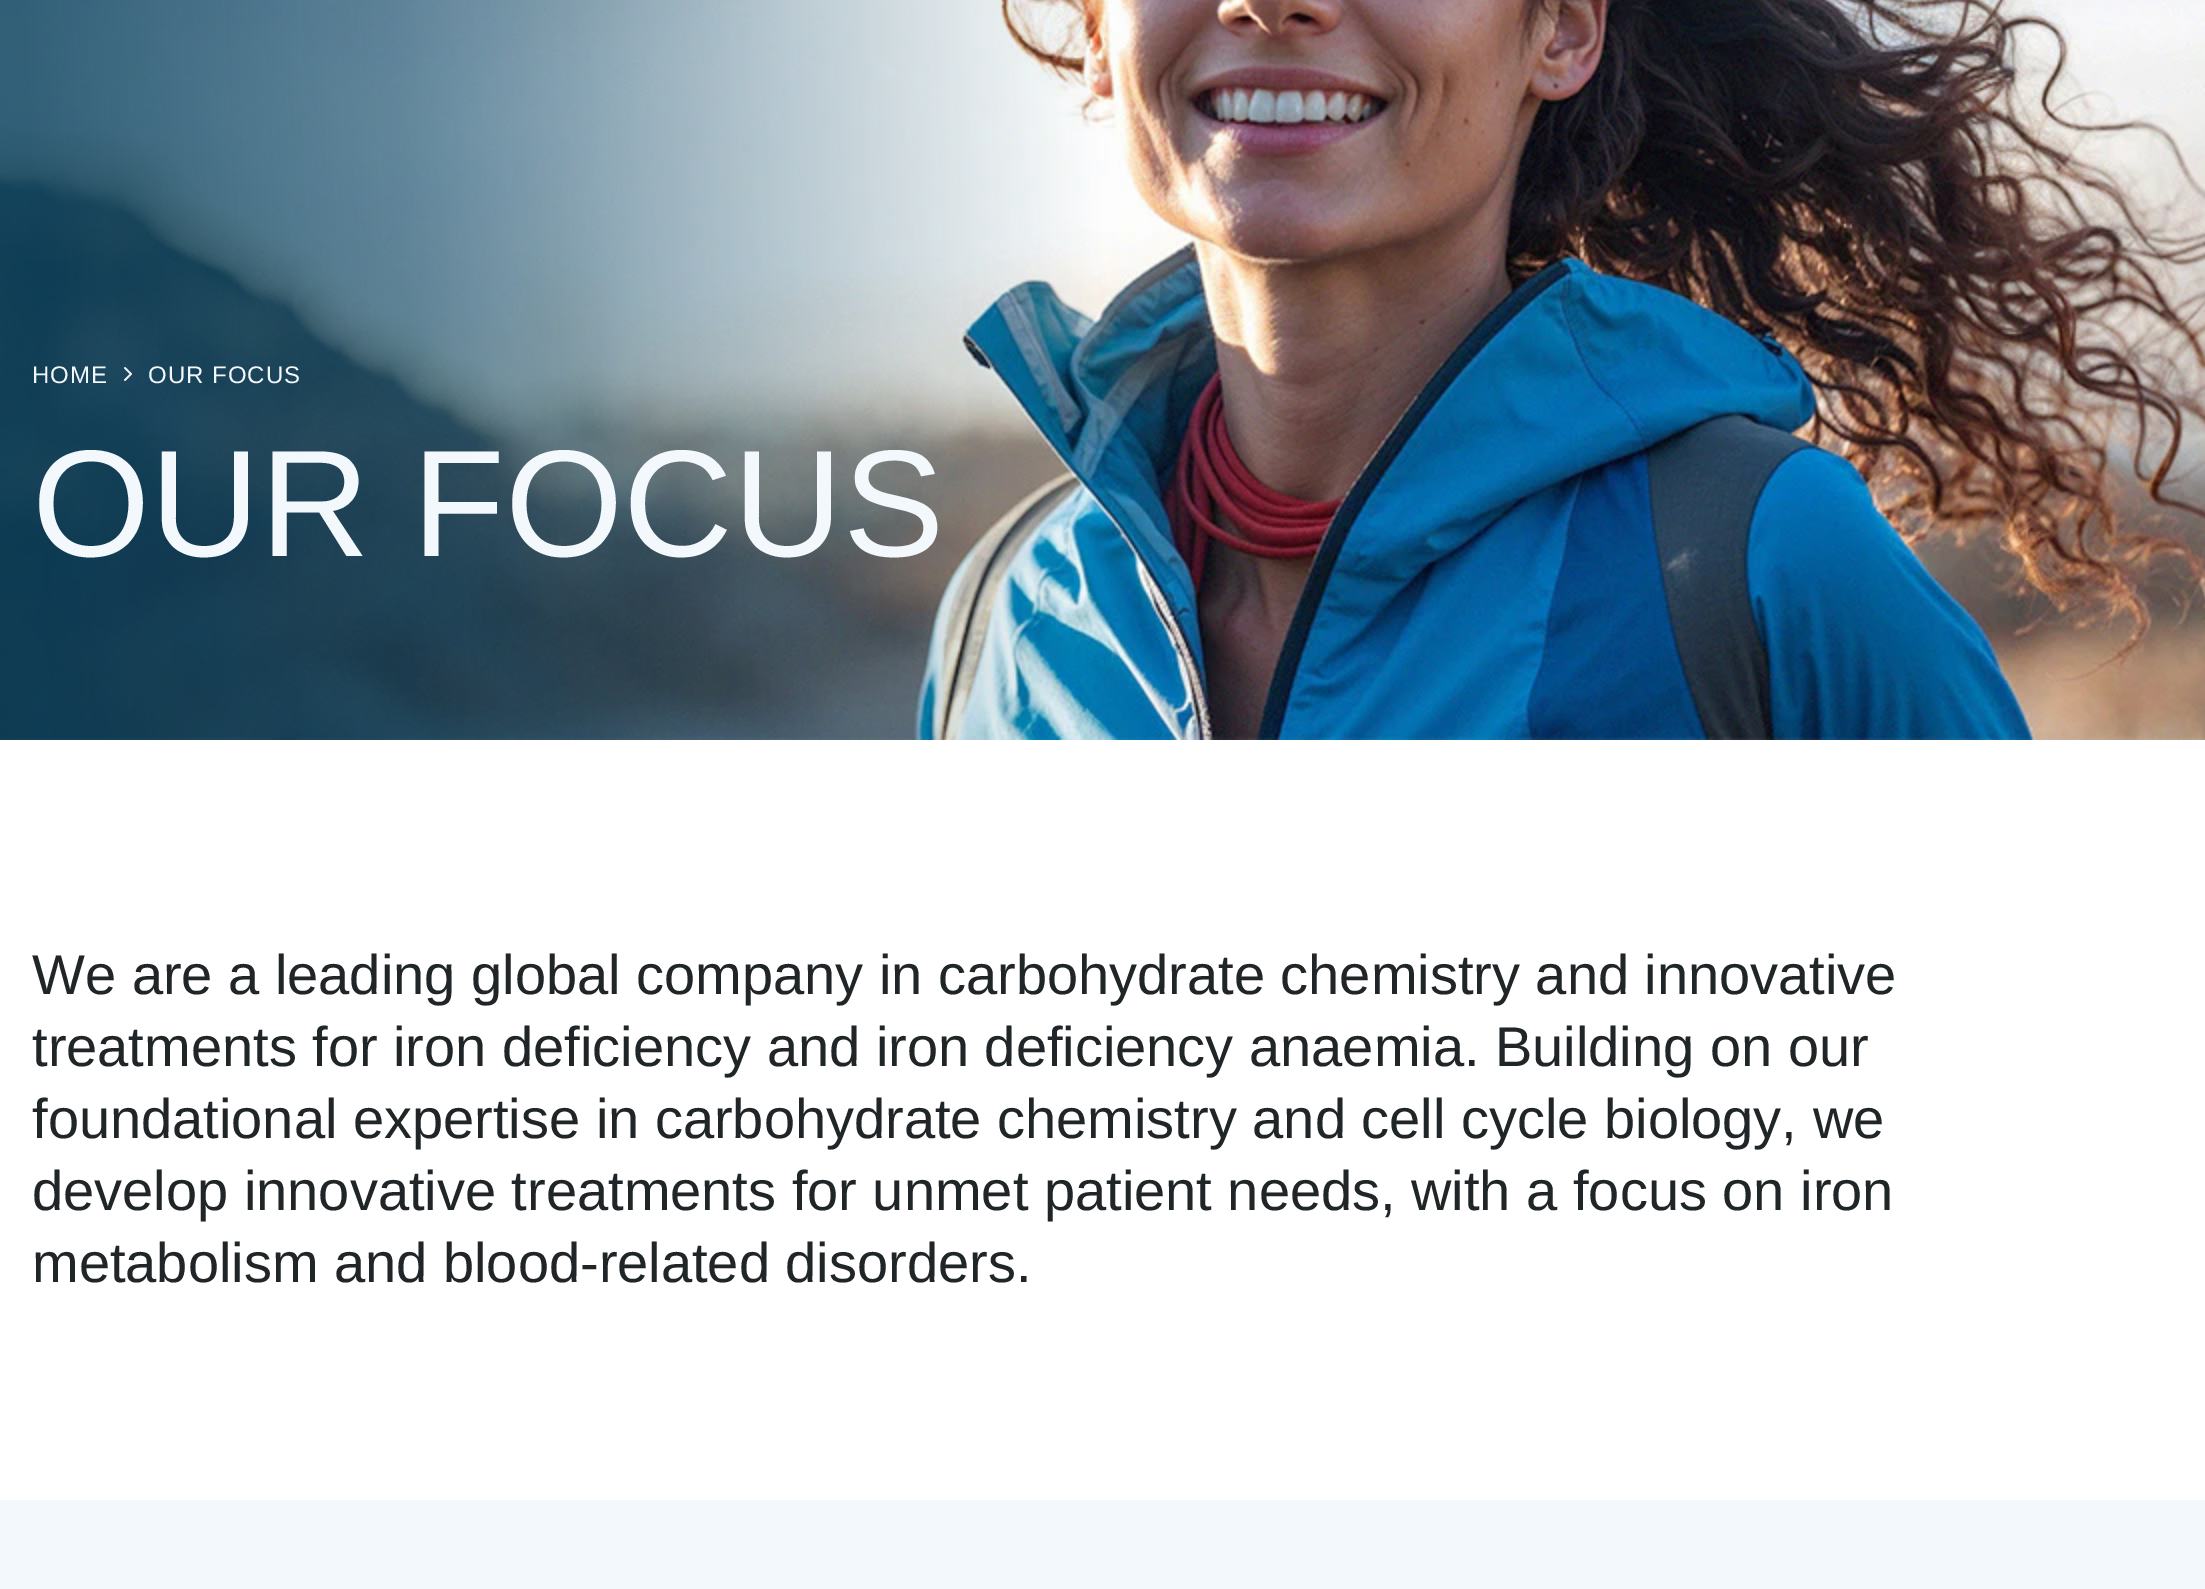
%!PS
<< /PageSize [2205 1589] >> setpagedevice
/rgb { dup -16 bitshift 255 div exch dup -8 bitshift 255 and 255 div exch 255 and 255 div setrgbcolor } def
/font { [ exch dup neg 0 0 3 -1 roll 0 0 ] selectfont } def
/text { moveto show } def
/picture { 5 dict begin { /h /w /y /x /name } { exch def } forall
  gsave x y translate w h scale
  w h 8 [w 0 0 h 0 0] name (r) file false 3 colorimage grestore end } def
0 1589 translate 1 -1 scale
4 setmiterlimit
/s1 { /LiberationSans-Regular 152 font 16#F3F8FC rgb } def
/s2 { /LiberationSans-Regular 56 font 16#202527 rgb } def
16#FFFFFF rgb
0 0 2205 1589 rectfill
(pic1.raw) 0 0 2205 740 picture
/LiberationSans-Regular 24 font
16#F3F8FC rgb
32 383 moveto 1 0 (HOME) ashow
(pic2.raw) 124 367 8 14 picture
148 383 moveto 1 0 (OUR FOCUS) ashow
s1
(OUR FOCUS) 32 556 text
s2
(We are a leading global company in carbohydrate chemistry and innovative) 32 994 text
(treatments for iron deficiency and iron deficiency anaemia. Building on our) 32 1066 text
(foundational expertise in carbohydrate chemistry and cell cycle biology, we) 32 1138 text
(develop innovative treatments for unmet patient needs, with a focus on iron) 32 1210 text
(metabolism and blood-related disorders.) 32 1282 text
16#F3F8FC rgb
0 1500 2205 89 rectfill
showpage
